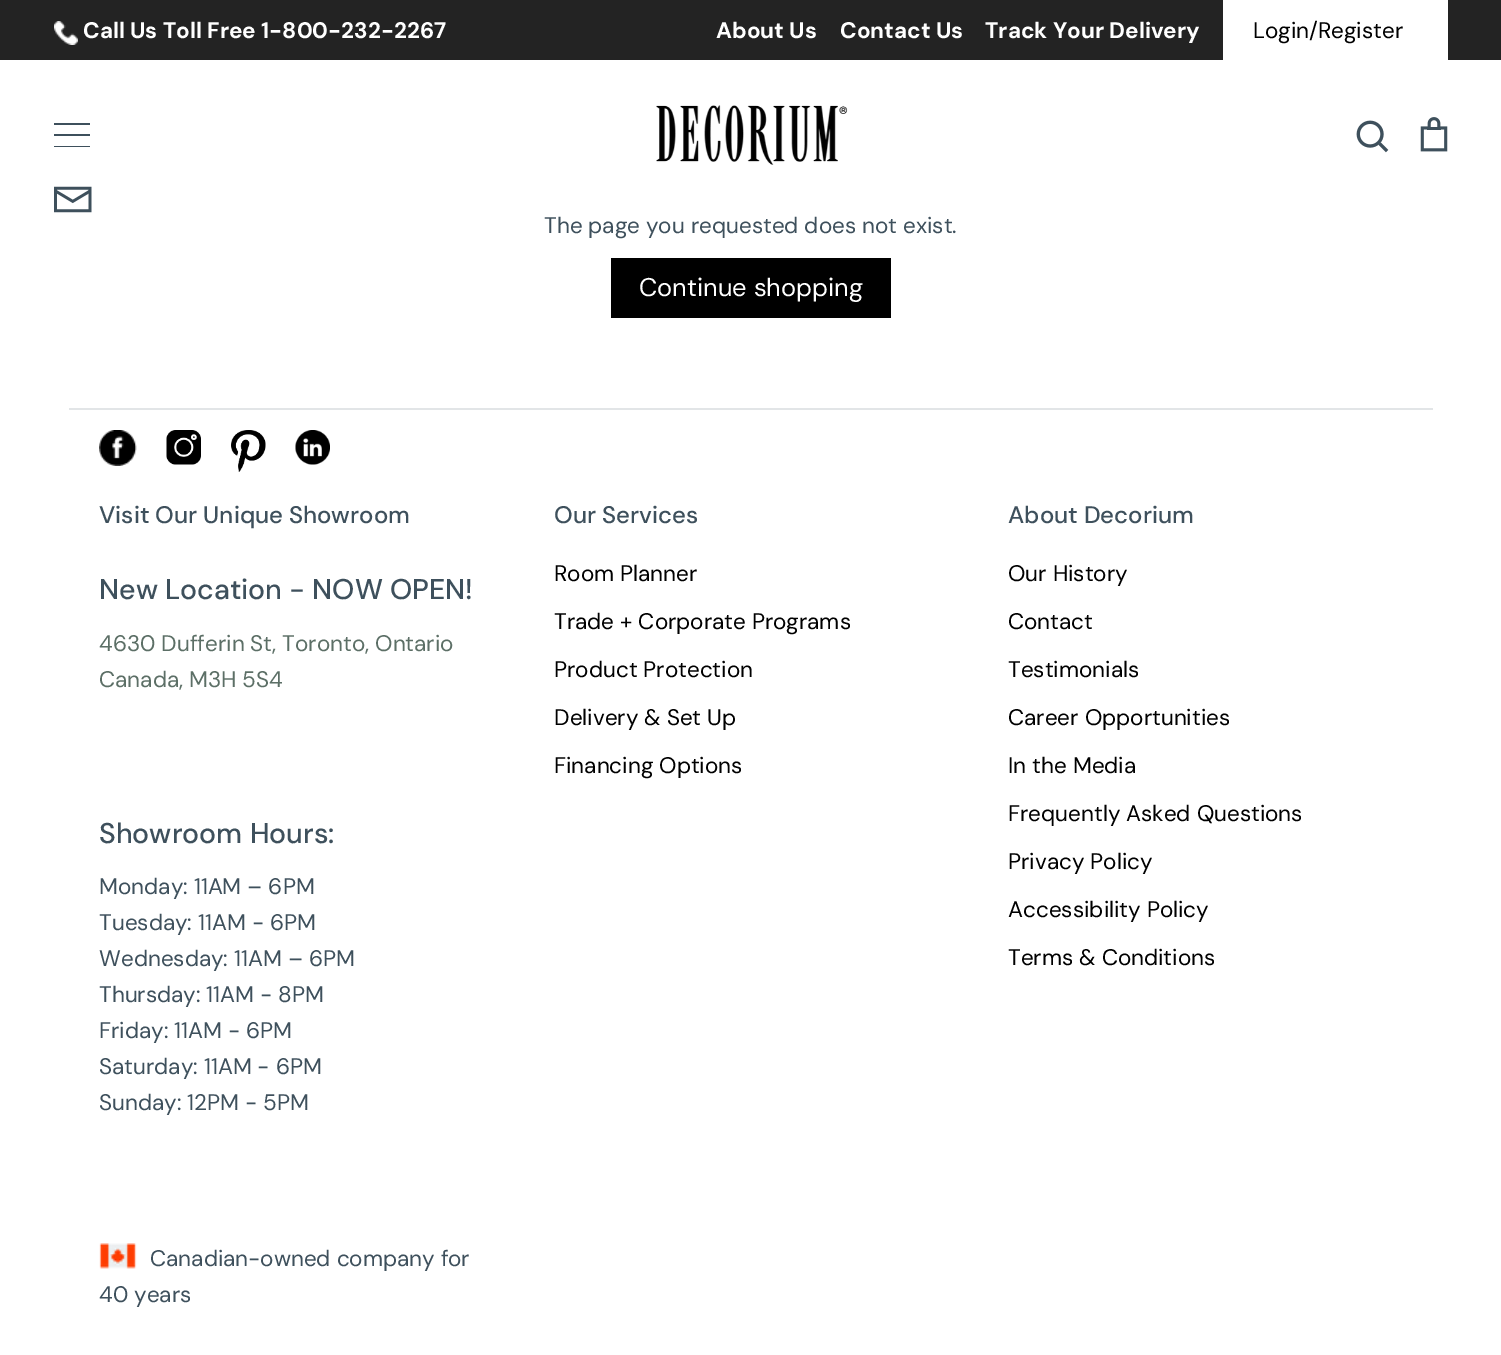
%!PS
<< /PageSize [1501 1355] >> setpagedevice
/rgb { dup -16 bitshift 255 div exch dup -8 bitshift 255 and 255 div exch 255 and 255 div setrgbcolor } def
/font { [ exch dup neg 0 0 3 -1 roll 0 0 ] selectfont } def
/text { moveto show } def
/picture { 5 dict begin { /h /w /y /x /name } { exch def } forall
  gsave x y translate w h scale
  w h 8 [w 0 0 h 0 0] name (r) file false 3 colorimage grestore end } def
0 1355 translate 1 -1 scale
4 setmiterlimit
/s1 { /DMSans-Bold 22.5 font 16#FFFFFF rgb } def
/s2 { /DMSans-Regular 22.5 font 16#000000 rgb } def
/s3 { /DMSans-Regular 22.5 font 16#3E505C rgb } def
/s4 { /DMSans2-Regular 25.5 font 16#FFFFFF rgb } def
/s5 { /DMSans-Medium 24 font 16#3E505C rgb } def
/s6 { /DMSans2-Medium 28.5 font 16#3E505C rgb } def
/s7 { /DMSans-Regular 22.5 font 16#5C6F66 rgb } def
16#FFFFFF rgb
0 0 1501 1355 rectfill
16#232323 rgb
0 0 1501 60 rectfill
(pic1.raw) 54 21 24 24 picture
s1
(Call Us Toll Free 1-800-232-2267) 83 38 text
(About Us) 716 38 text
(Contact Us) 840 38 text
(Track Your Delivery) 985 38 text
1223 0 225 60 rectfill
s2
(Login/Register) 1253 38 text
16#3E505C rgb
54 123 36 2 rectfill
54 134 36 2 rectfill
54 146 36 1 rectfill
(pic2.raw) 54 186 38 27 picture
(pic3.raw) 656 105 192 60 picture
(pic4.raw) 1356 120 33 33 picture
(pic5.raw) 1420 117 28 35 picture
(The page you requested does not exist.) 544 233 text
16#000000 rgb
611 258 280 60 rectfill
s4
(Continue shopping) 639 296 text
(pic6.raw) 99 430 38 36 picture
(pic7.raw) 166 430 35 35 picture
(pic8.raw) 231 430 35 42 picture
(pic9.raw) 295 430 35 35 picture
16#E2E5E7 rgb
69 408 1364 2 rectfill
s5
(Visit Our Unique Showroom) 99 523 text
s6
(New Location - NOW OPEN!) 99 599 text
s7
(4630 Dufferin St, Toronto, Ontario) 99 651 text
(Canada, M3H 5S4) 99 687 text
s6
(Showroom Hours:) 99 843 text
s3
(Monday: 11AM – 6PM) 99 894 text
(Tuesday: 11AM - 6PM) 99 930 text
(Wednesday: 11AM – 6PM) 99 966 text
(Thursday: 11AM - 8PM) 99 1002 text
(Friday: 11AM - 6PM) 99 1038 text
(Saturday: 11AM - 6PM) 99 1074 text
(Sunday: 12PM - 5PM) 99 1110 text
(pic10.raw) 99 1243 38 26 picture
(Canadian-owned company for) 150 1266 text
(40 years) 99 1302 text
s5
(Our Services) 554 523 text
s2
(Room Planner) 554 581 text
(Trade + Corporate Programs) 554 629 text
(Product Protection) 554 677 text
(Delivery & Set Up) 554 725 text
(Financing Options) 554 773 text
s5
(About Decorium) 1008 523 text
s2
(Our History) 1008 581 text
(Contact) 1008 629 text
(Testimonials) 1008 677 text
(Career Opportunities) 1008 725 text
(In the Media) 1008 773 text
(Frequently Asked Questions) 1008 821 text
(Privacy Policy) 1008 869 text
(Accessibility Policy) 1008 917 text
(Terms & Conditions) 1008 965 text
showpage
